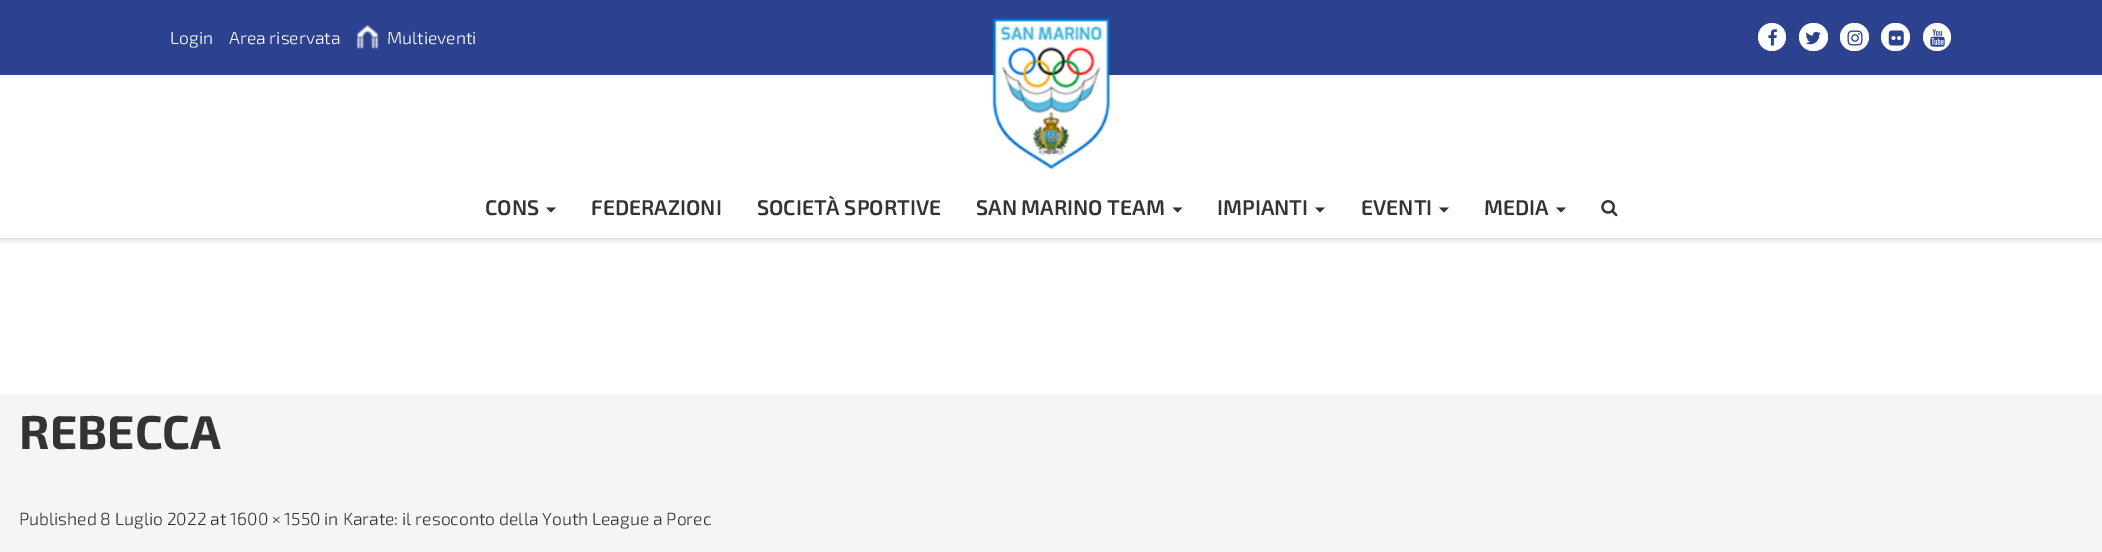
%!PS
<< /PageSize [2102 552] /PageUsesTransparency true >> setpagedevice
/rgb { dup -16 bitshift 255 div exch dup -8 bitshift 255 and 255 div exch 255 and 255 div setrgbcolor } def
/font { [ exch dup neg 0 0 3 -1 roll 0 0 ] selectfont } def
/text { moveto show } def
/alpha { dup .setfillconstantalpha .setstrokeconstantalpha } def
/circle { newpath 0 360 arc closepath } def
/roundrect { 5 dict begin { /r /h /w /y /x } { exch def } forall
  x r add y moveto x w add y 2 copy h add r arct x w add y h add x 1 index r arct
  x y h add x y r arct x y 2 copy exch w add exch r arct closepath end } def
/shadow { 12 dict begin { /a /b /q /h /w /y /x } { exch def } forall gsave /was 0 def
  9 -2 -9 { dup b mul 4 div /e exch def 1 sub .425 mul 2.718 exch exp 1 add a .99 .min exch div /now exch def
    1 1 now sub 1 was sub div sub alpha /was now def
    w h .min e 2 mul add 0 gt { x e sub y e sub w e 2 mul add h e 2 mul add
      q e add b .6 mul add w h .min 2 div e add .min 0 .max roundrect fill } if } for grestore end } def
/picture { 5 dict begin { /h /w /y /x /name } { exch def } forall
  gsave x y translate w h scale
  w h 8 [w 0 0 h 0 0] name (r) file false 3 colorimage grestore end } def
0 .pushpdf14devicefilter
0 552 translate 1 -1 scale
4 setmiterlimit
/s1 { /Exo2-Light 17.5 font 16#FFFFFF rgb } def
/s2 { /Exo2-SemiBold 21.25 font 16#333333 rgb } def
/s3 { /Exo2-Bold 47.5 font 16#333333 rgb } def
/s4 { /Exo2-Light 17.5 font 16#333333 rgb } def
16#FFFFFF rgb
0 0 2102 552 rectfill
16#000000 rgb
0 76 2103 163 0 3 0.2 shadow
16#2C428E rgb
0 0 2102 75 rectfill
s1
(Login) 170 44 text
(Area riservata) 229 44 text
(pic1.raw) 356 25 23 24 picture
(Multieventi) 387 44 text
1772 37 14 circle fill
(pic2.raw) 1768 29 9 17 picture
1799 23 29 28 14 roundrect fill
(pic3.raw) 1805 31 16 14 picture
1840 23 29 28 14 roundrect fill
(pic4.raw) 1847 30 16 16 picture
1881 23 29 28 14 roundrect fill
(pic5.raw) 1888 30 16 16 picture
1937 37 14 circle fill
(pic6.raw) 1930 29 15 18 picture
0 75 2102 163 rectfill
(pic7.raw) 992 18 118 151 picture
s2
(CONS) 485 215 text
546 207.5 moveto 556 207.5 lineto 551 212.5 lineto closepath fill
(FEDERAZIONI) 591 215 text
(SOCIETÀ SPORTIVE) 757 215 text
(SAN MARINO TEAM) 976 215 text
1172.5 207.5 moveto 1182.5 207.5 lineto 1177.5 212.5 lineto closepath fill
(IMPIANTI) 1217 215 text
1315 207.5 moveto 1325 207.5 lineto 1320 212.5 lineto closepath fill
(EVENTI) 1361 215 text
1439 207.5 moveto 1449 207.5 lineto 1444 212.5 lineto closepath fill
(MEDIA) 1484 215 text
1556 207.5 moveto 1566 207.5 lineto 1561 212.5 lineto closepath fill
(pic8.raw) 1601 200 17 17 picture
16#F5F5F5 rgb
0 394 2102 158 rectfill
s3
(REBECCA) 19 449 text
s4
(Published 8 Luglio 2022 at 1600 × 1550 in Karate: il resoconto della Youth League a Porec) 19 525 text
.poppdf14devicefilter showpage
